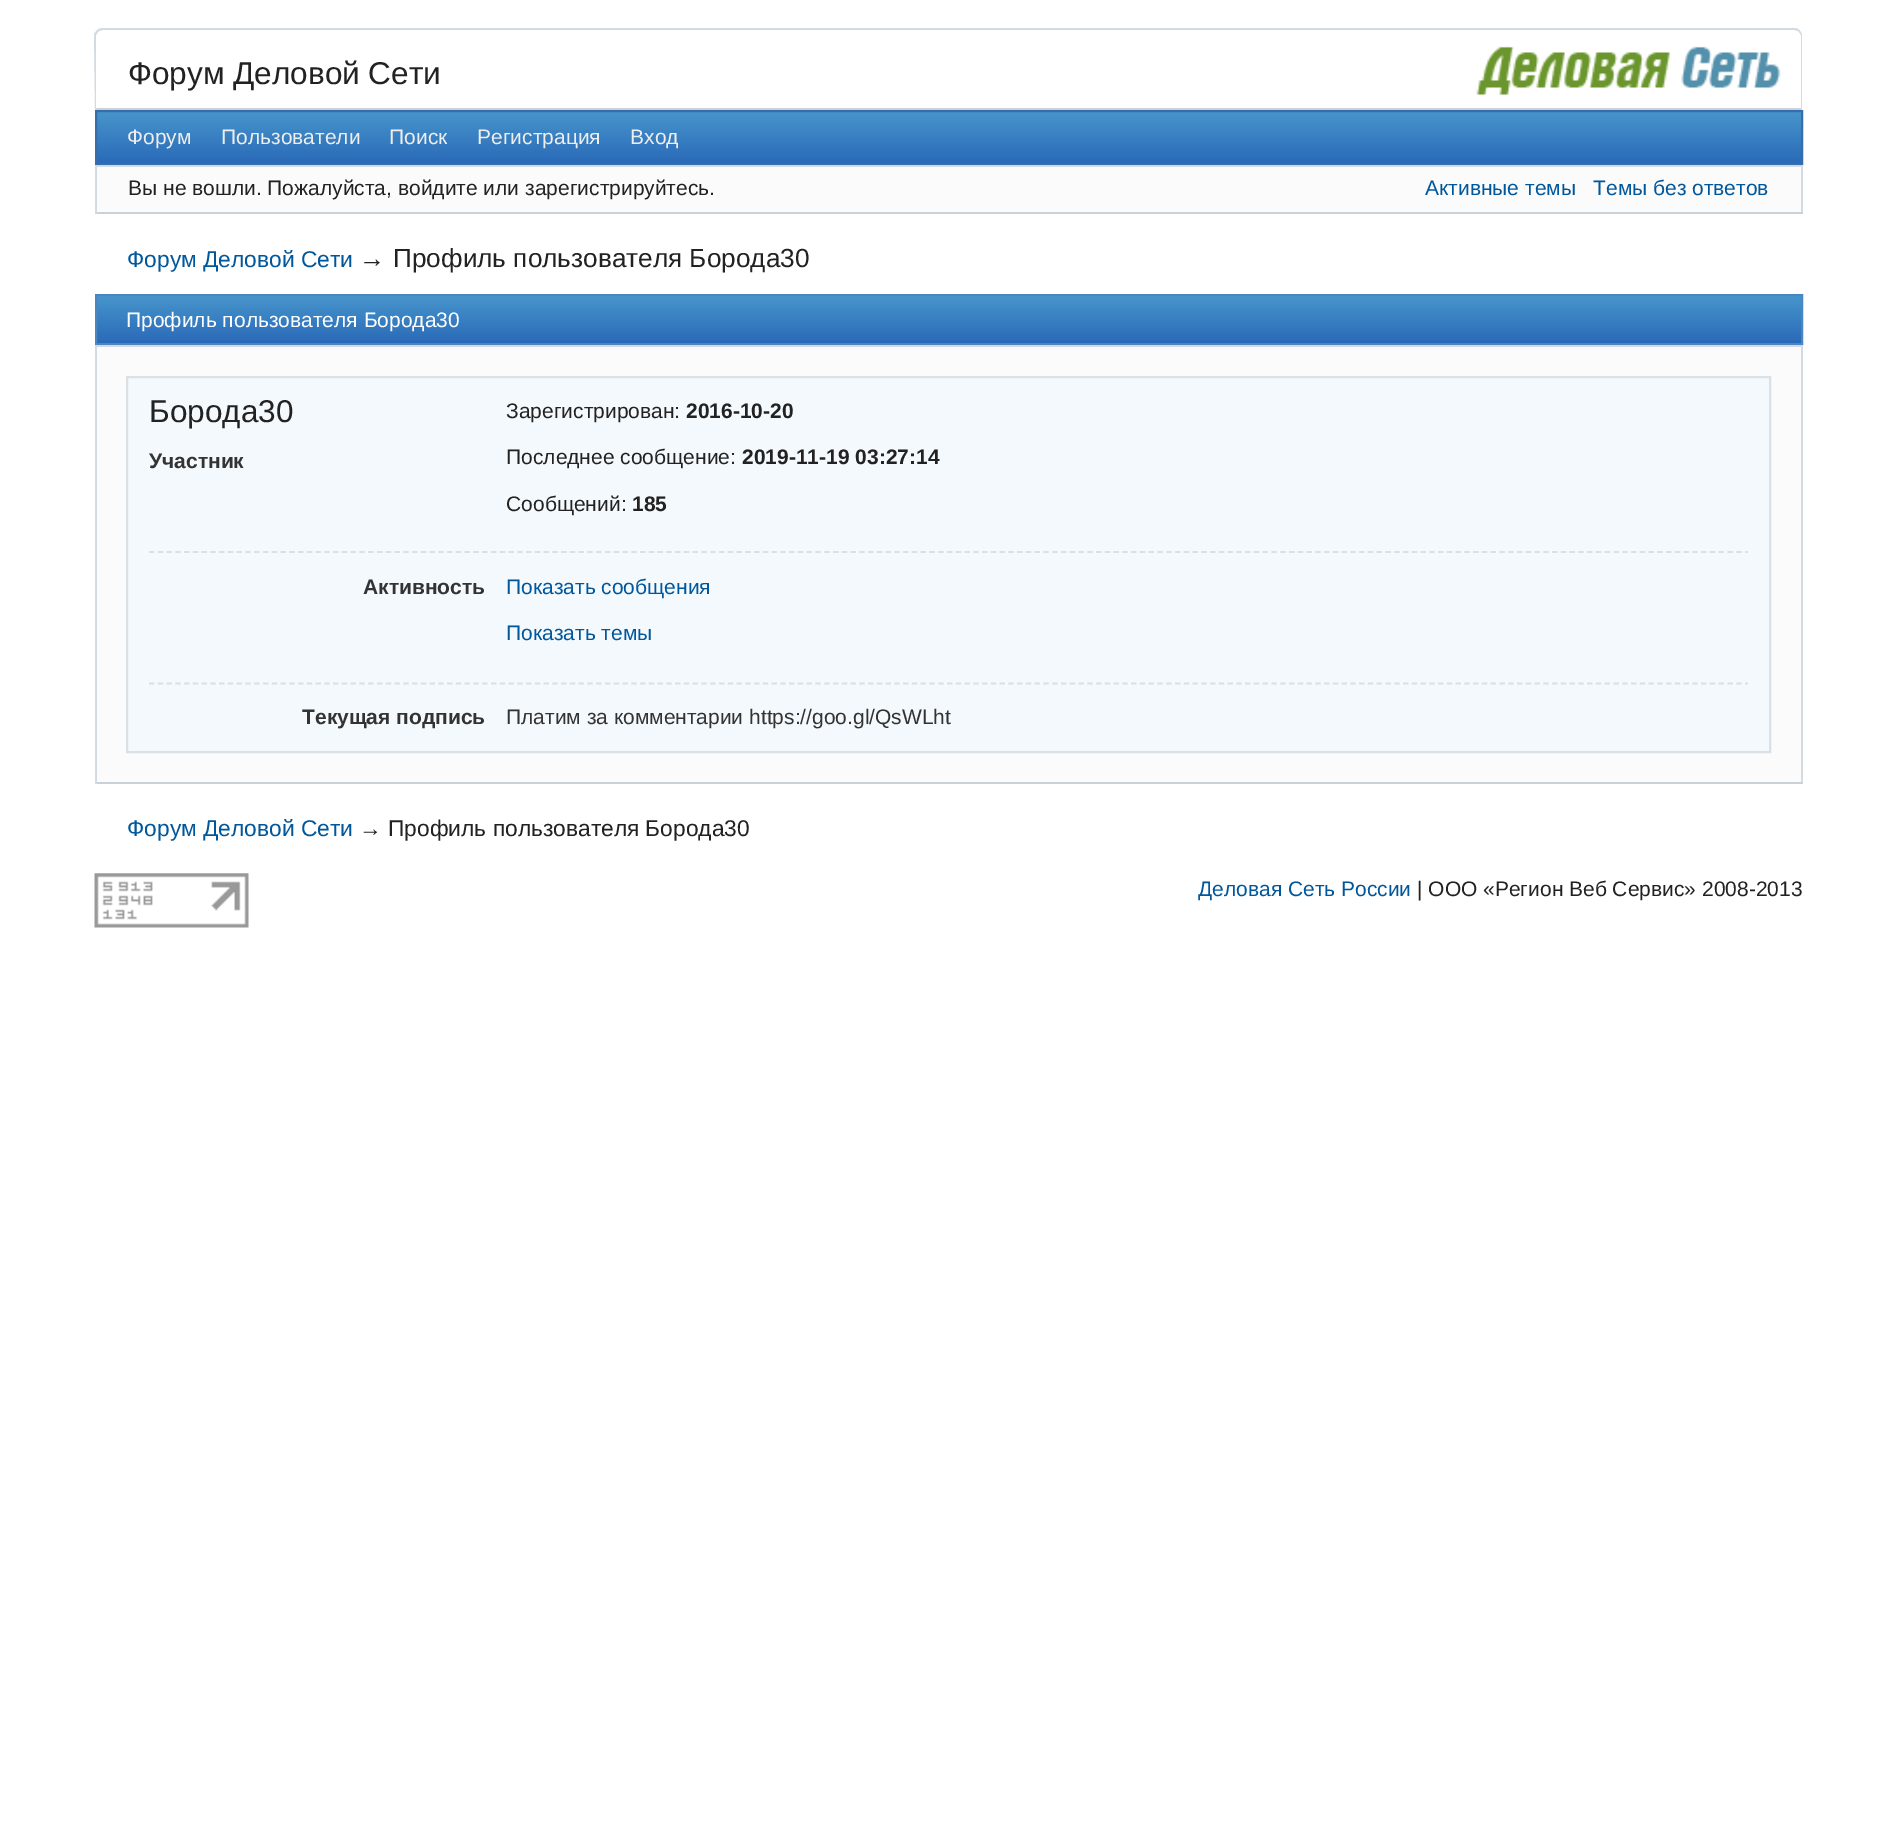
%!PS
<< /PageSize [1896 1839] >> setpagedevice
/rgb { dup -16 bitshift 255 div exch dup -8 bitshift 255 and 255 div exch 255 and 255 div setrgbcolor } def
/font { [ exch dup neg 0 0 3 -1 roll 0 0 ] selectfont } def
/text { moveto show } def
/picture { 5 dict begin { /h /w /y /x /name } { exch def } forall
  gsave x y translate w h scale
  w h 8 [w 0 0 h 0 0] name (r) file false 3 colorimage grestore end } def
0 1839 translate 1 -1 scale
4 setmiterlimit
/s1 { /LiberationSans-Regular 31.5 font 16#222222 rgb } def
/s2 { /LiberationSans-Regular 21 font 16#EEEEEE rgb } def
/s3 { /LiberationSans-Regular 21 font 16#222222 rgb } def
/s4 { /LiberationSans-Regular 21 font 16#00579C rgb } def
/s5 { /LiberationSans-Regular 22.75 font 16#00579C rgb } def
/s6 { /LiberationSans-Regular 26.2 font 16#222222 rgb } def
/s7 { /LiberationSans-Regular 21 font 16#FFFFFF rgb } def
/s8 { /LiberationSans-Bold 21 font 16#333333 rgb } def
/s9 { /LiberationSans-Bold 21 font 16#222222 rgb } def
/s10 { /LiberationSans-Regular 21 font 16#333333 rgb } def
/s11 { /LiberationSans-Regular 22.75 font 16#222222 rgb } def
16#FFFFFF rgb
0 0 1896 1839 rectfill
(pic1.raw) 1476 46 305 49 picture
16#D3DAE1 rgb
103 28 moveto 101 28 98 29 97 30 curveto 98 32 lineto 99 31 101 30 103 30 curveto 1794 30 lineto 1796 30 1798 31 1799 32 curveto 1800 31 lineto 1799 29 1797 28 1794 28 curveto closepath fill
1800 31 moveto 1801 32 1802 34 1802 36 curveto 1802 110 lineto 1800 108 lineto 1801 108 lineto 1801 35 lineto 1799 32 lineto closepath fill
16#CBD1D8 rgb
1802 110 moveto 95 110 lineto 97 108 lineto 1800 108 lineto closepath fill
16#D3DAE1 rgb
94 34 moveto 97 30 lineto 98 32 lineto 96 35 lineto 96 108 lineto 97 108 lineto 95 110 lineto closepath fill
s1
(Форум Деловой Сети) 128 84 text
gsave 97 112 moveto 1801 112 lineto 1801 163 lineto 97 163 lineto closepath clip newpath
<< /ShadingType 2 /ColorSpace /DeviceRGB /Coords [949 163 949 112] /Extend [true true] /Function << /FunctionType 2 /Domain [0 1] /C0 [0.165 0.416 0.722] /C1 [0.278 0.584 0.8] /N 1 >> >> shfill grestore
16#376DAA rgb
2 setlinewidth
96 111 1706 53 rectstroke
s2
(Форум) 127 144 text
(Пользователи) 221 144 text
(Поиск) 389 144 text
(Регистрация) 477 144 text
(Вход) 630 144 text
16#FBFBFB rgb
97 167 1704 45 rectfill
16#D3DAE1 rgb
95 165 1708 2 rectfill
1801 165 2 49 rectfill
16#CBD1D8 rgb
95 212 1708 2 rectfill
16#D3DAE1 rgb
95 165 2 49 rectfill
s3
(Вы не вошли. Пожалуйста, войдите или зарегистрируйтесь.) 128 195 text
s4
(Активные темы) 1425 195 text
(Темы без ответов) 1593 195 text
s5
(Форум Деловой Сети) 127 267 text
s6
(→) 359 267 text
(Профиль пользователя Борода30) 393 267 text
gsave 97 296 moveto 1801 296 lineto 1801 343 lineto 97 343 lineto closepath clip newpath
<< /ShadingType 2 /ColorSpace /DeviceRGB /Coords [949 343 949 296] /Extend [true true] /Function << /FunctionType 2 /Domain [0 1] /C0 [0.165 0.416 0.722] /C1 [0.278 0.584 0.8] /N 1 >> >> shfill grestore
16#4A86C1 rgb
96 295 1706 49 rectstroke
s7
(Профиль пользователя Борода30) 126 327 text
16#FBFBFB rgb
97 347 1704 435 rectfill
16#D3DAE1 rgb
95 345 1708 2 rectfill
1801 345 2 439 rectfill
16#CBD1D8 rgb
95 782 1708 2 rectfill
16#D3DAE1 rgb
95 345 2 439 rectfill
16#F4F9FD rgb
127 377 moveto 1770 377 lineto 1770 752 lineto 127 752 lineto closepath gsave fill grestore
16#DBE0E4 rgb
stroke
s1
(Борода30) 149 422 text
s8
(Участник) 149 468 text
s3
(Зарегистрирован:) 506 418 text
s9
(2016-10-20) 686 418 text
s3
(Последнее сообщение:) 506 464 text
s9
(2019-11-19 03:27:14) 742 464 text
s3
(Сообщений:) 506 511 text
s9
(185) 632 511 text
16#DBE0E4 rgb
1.8 setlinewidth
[5.25 3.52] 0 setdash
149 552 moveto 1748 552 lineto stroke
s8
(Активность) 363 594 text
s4
(Показать сообщения) 506 594 text
(Показать темы) 506 640 text
16#DBE0E4 rgb
149 683.5 moveto 1748 683.5 lineto stroke
s8
(Текущая подпись) 302 724 text
s10
(Платим за комментарии https://goo.gl/QsWLht) 506 724 text
s5
(Форум Деловой Сети) 127 836 text
s11
(→ Профиль пользователя Борода30) 359 836 text
(pic2.raw) 94 873 155 55 picture
s4
(Деловая Сеть России) 1198 896 text
s3
(| ООО «Регион Веб Сервис» 2008-2013) 1417 896 text
showpage
